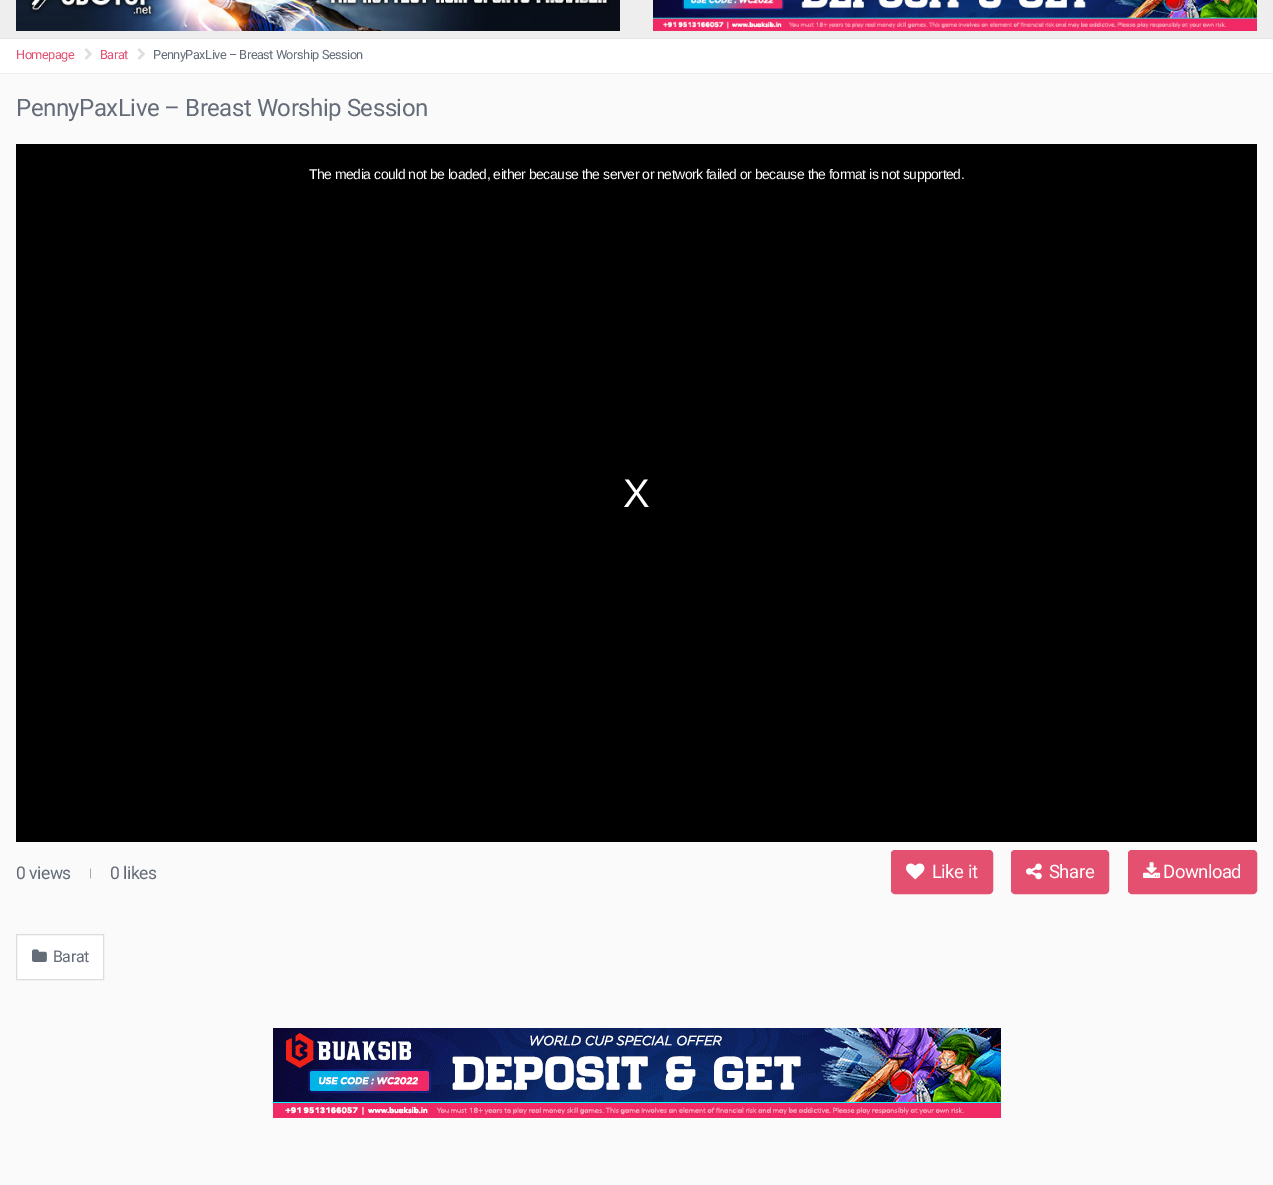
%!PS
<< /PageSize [1273 1185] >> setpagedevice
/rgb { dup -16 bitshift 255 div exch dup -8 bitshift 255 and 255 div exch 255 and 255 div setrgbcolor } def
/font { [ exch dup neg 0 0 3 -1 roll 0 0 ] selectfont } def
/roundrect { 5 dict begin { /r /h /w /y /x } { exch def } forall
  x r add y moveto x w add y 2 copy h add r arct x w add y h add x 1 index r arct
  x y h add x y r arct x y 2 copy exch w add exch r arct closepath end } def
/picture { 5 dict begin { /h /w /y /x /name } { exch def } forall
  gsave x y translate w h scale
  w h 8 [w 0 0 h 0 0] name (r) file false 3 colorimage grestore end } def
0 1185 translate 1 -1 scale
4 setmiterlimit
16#FAFAFA rgb
0 0 1273 1185 rectfill
16#EEEEEE rgb
0 0 1273 38 rectfill
16#E5E5E5 rgb
0 38 1273 1 rectfill
(pic1.raw) 16 0 604 31 picture
(pic2.raw) 653 0 604 31 picture
16#FFFFFF rgb
0 39 1273 34 rectfill
16#EEEEEE rgb
0 73 1273 1 rectfill
/Roboto-Regular 12.75 font
16#E45070 rgb
16 59 moveto -0.5 0 (Homepage) ashow
(pic3.raw) 84 48 8 12 picture
100 59 moveto -0.5 0 (Barat) ashow
(pic3.raw) 137 48 8 12 picture
16#646C79 rgb
153 59 moveto -0.5 0 (PennyPaxLive – Breast Worship Session) ashow
/Roboto-Regular 24 font
16 116 moveto -0.5 0 (PennyPaxLive – Breast Worship Session) ashow
16#000000 rgb
16 144 1241 698 rectfill
/LiberationSans-Regular 14 font
16#FFFFFF rgb
309 179 moveto -0.5 0 (The media could not be loaded, either because the server or network failed or because the format is not supported.) ashow
/LiberationSans-Regular 40 font
623 507 moveto -0.5 0 (X) ashow
/Roboto-Regular 17.5 font
16#646C79 rgb
16 879 moveto -0.5 0 (0 views) ashow
/Roboto-Regular 12 font
16#AAAAAA rgb
89 877 moveto -0.5 0 (|) ashow
/Roboto-Regular 17.5 font
16#646C79 rgb
110 879 moveto -0.5 0 (0 likes) ashow
16#E45070 rgb
891.5 850.5 101 43 3.5 roundrect gsave fill grestore
stroke
(pic4.raw) 906 863 19 17 picture
/Roboto-Regular 18.5 font
16#FFFFFF rgb
932 878 moveto -0.5 0 (Like it) ashow
16#E45070 rgb
1011.5 850.5 97 43 3.5 roundrect gsave fill grestore
stroke
(pic5.raw) 1026 863 16 17 picture
16#FFFFFF rgb
1049 878 moveto -0.5 0 (Share) ashow
16#E45070 rgb
1128.5 850.5 128 43 3.5 roundrect gsave fill grestore
stroke
(pic6.raw) 1143 862 18 16 picture
16#FFFFFF rgb
1163 878 moveto -0.5 0 (Download) ashow
16.5 934.5 moveto 103.5 934.5 lineto 103.5 979.5 lineto 16.5 979.5 lineto closepath gsave fill grestore
16#DDDDDD rgb
stroke
(pic7.raw) 32 949 15 13 picture
/Roboto-Regular 16 font
16#646C79 rgb
53 962 moveto -0.5 0 (Barat) ashow
(pic8.raw) 273 1028 728 90 picture
showpage
